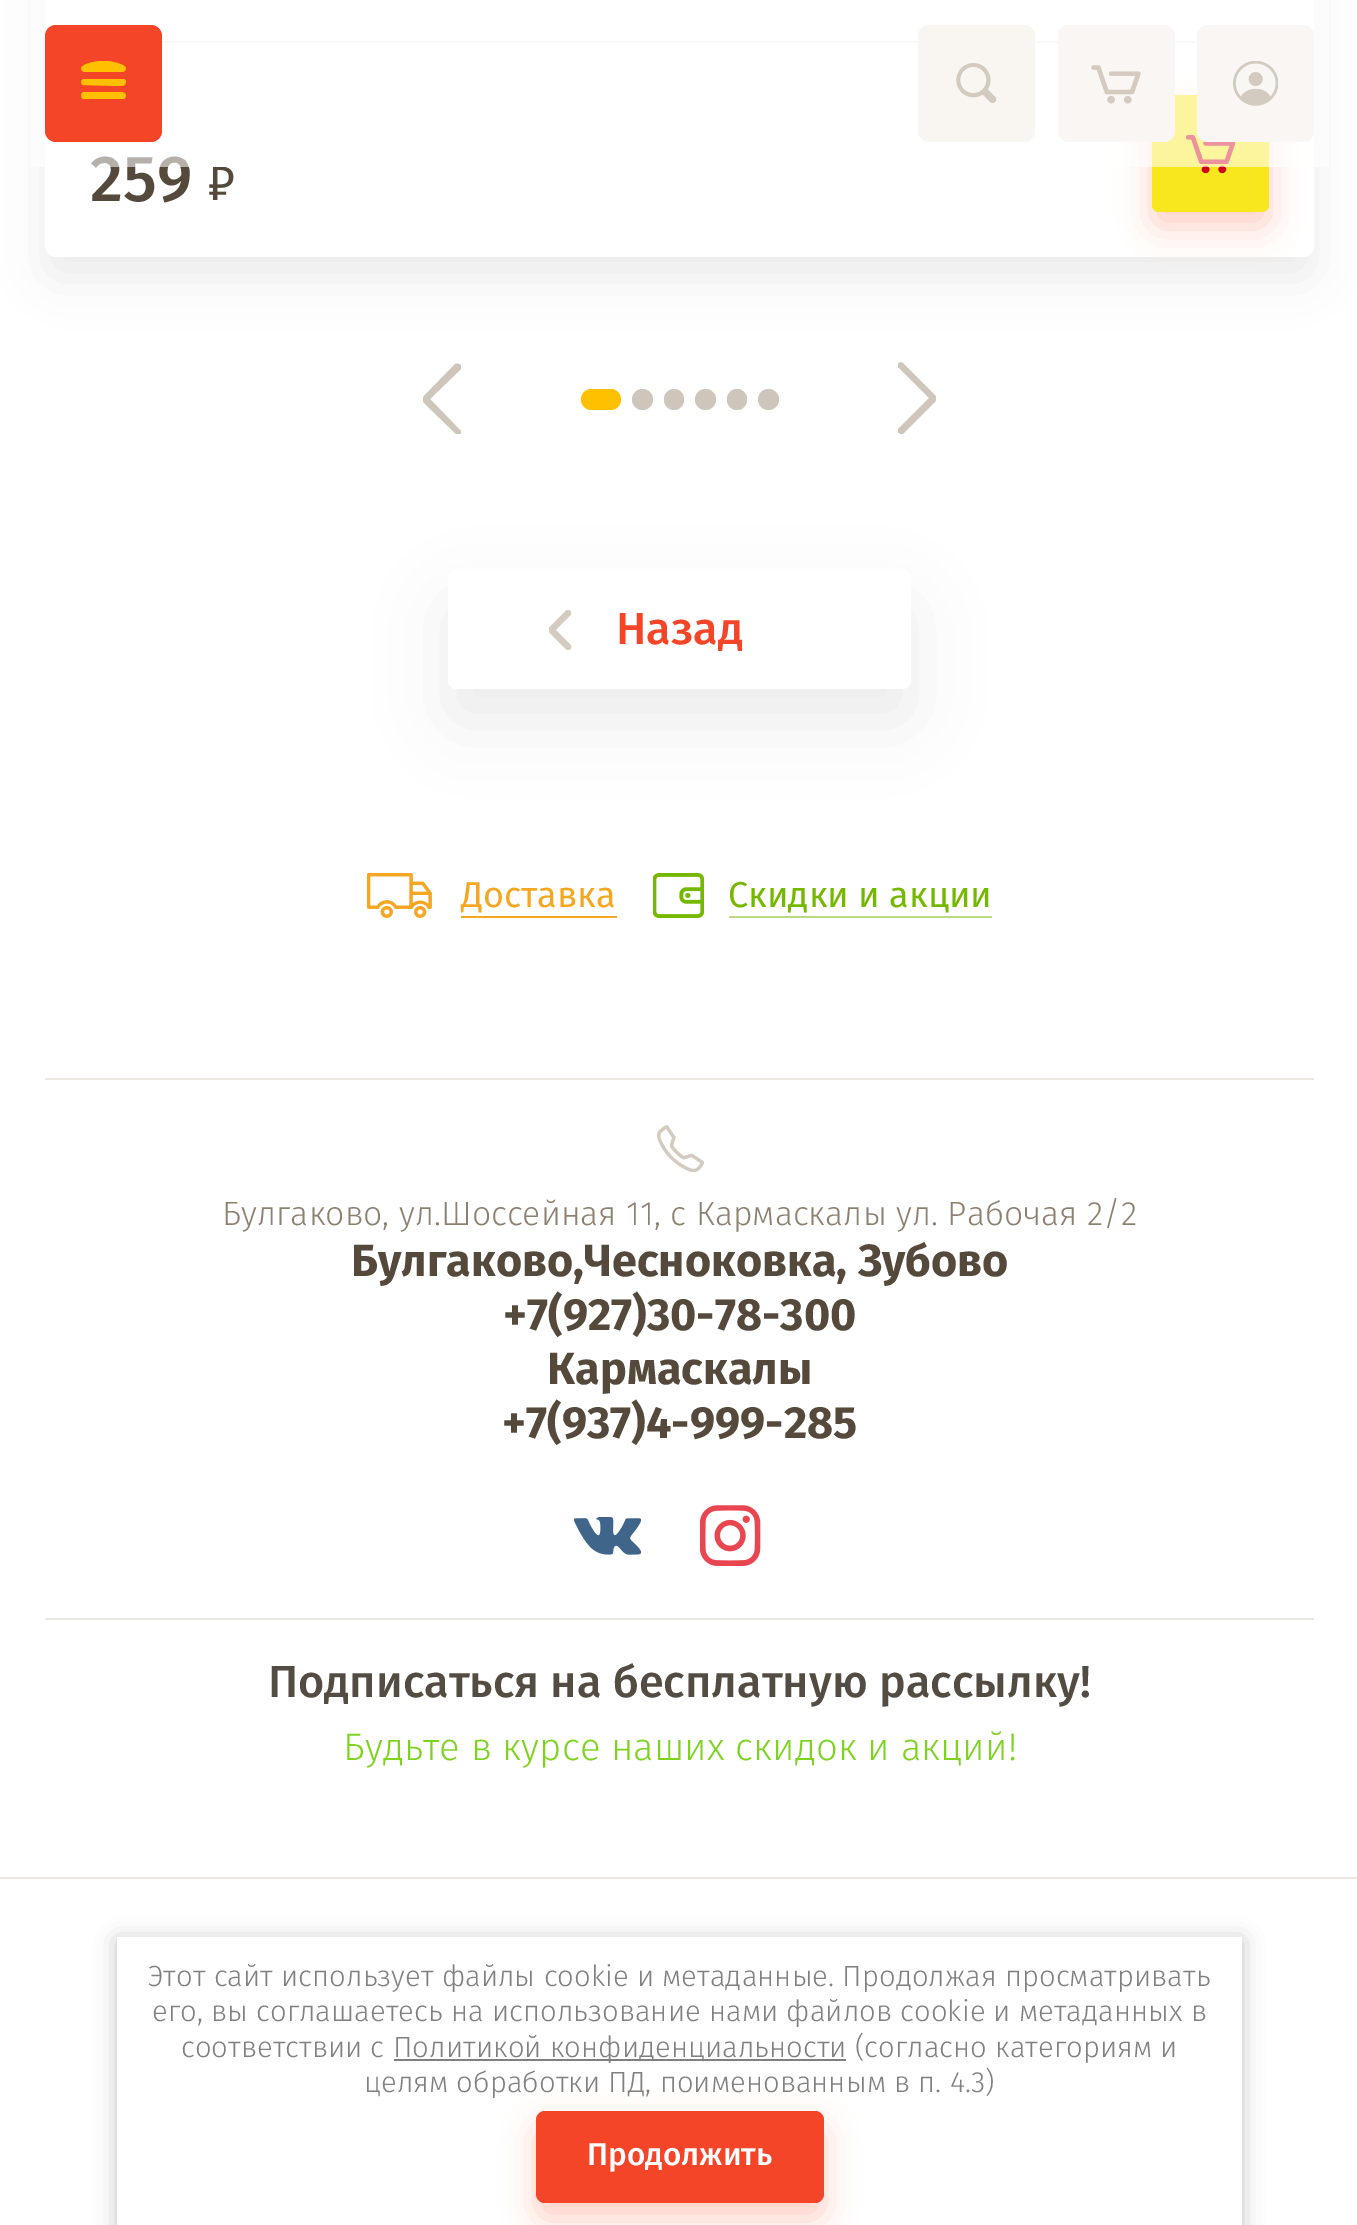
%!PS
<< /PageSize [1357 2225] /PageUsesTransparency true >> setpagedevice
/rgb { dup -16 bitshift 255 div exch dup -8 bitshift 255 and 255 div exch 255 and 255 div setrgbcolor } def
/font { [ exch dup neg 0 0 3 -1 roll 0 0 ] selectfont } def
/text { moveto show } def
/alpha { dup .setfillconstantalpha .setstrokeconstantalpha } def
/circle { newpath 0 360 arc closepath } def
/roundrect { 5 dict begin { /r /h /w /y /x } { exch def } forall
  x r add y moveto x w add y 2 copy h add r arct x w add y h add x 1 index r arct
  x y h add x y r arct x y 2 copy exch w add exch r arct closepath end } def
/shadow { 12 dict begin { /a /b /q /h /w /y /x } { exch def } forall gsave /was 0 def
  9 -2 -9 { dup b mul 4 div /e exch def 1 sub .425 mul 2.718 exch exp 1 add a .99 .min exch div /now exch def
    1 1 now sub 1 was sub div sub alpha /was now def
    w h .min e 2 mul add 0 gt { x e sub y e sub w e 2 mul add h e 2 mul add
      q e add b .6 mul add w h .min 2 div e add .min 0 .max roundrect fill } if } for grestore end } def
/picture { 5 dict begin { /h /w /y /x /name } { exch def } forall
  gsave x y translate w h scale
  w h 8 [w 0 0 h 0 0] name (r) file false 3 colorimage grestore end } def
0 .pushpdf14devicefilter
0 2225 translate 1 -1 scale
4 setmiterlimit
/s1 { /FiraSans-Medium 65 font 16#54493B rgb } def
/s2 { /FiraSans-Medium 45 font 16#F54528 rgb } def
/s3 { /FiraSans-Regular 36 font 16#F5A623 rgb } def
/s4 { /FiraSans-Regular 36 font 16#75B800 rgb } def
/s5 { /FiraSans-Light 33.75 font 16#8C8171 rgb } def
/s6 { /FiraSans-Bold 45 font 16#54493B rgb } def
/s7 { /FiraSans-Medium 45 font 16#534C42 rgb } def
/s8 { /FiraSans-Light 38.25 font 16#7ED321 rgb } def
/s9 { /FiraSans-Light 29.25 font 16#808080 rgb } def
/s10 { /FiraSans-Medium 31.5 font 16#FFFFFF rgb } def
16#FFFFFF rgb
0 0 1357 2225 rectfill
16#000000 rgb
45 -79 1269 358 11 22.5 0.07 shadow
16#FFFFFF rgb
45 -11 1269 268 11 roundrect fill
16#F3F1ED rgb
162 41 1035 2 rectfill
s1
(259) 90 201 text
16#F54528 rgb
1152 110 117 117 7 17 0.27 shadow
16#F8E71C rgb
1152 95 117 117 7 roundrect fill
(pic6.raw) 1186 135 49 38 picture
0.57 alpha
16#FFFFFF rgb
30 0 1299 167 rectfill
1 alpha
16#F54528 rgb
45 25 117 117 11 roundrect fill
gsave
81 79 45 7 rectclip
16#FFC000 rgb
84 79 moveto 116 79 lineto 119 79 126 77 126 82 curveto 126 87 119 86 116 86 curveto 83 85 lineto 80 84 81 79 84 79 curveto closepath fill
grestore
(pic1.raw) 81 61 45 11 picture
gsave
81 92 45 7 rectclip
16#FFC000 rgb
84 92 moveto 116 92 lineto 119 92 126 91 126 96 curveto 126 100 119 99 116 99 curveto 83 99 lineto 80 97 81 92 84 92 curveto closepath fill
grestore
16#F9F6F2 rgb
918 25 117 117 11 roundrect fill
(pic2.raw) 956 63 41 40 picture
16#FAF6F3 rgb
1058 25 117 117 11 roundrect fill
(pic3.raw) 1091 65 50 39 picture
1197 25 117 117 11 roundrect fill
(pic4.raw) 1233 61 45 45 picture
(pic5.raw) 209 167 25 33 picture
gsave
423 362 38 72 rectclip
16#CEC6BB rgb
424 396 moveto 455 364 lineto 457 363 461 364 461 366 curveto 461 369 lineto 430 399 lineto 460 430 lineto 462 431 462 433 460 434 curveto 459 436 457 436 456 434 curveto 424 403 lineto 423 402 423 401 423 400 curveto 423 398 423 397 424 396 curveto closepath fill
grestore
gsave
898 362 38 72 rectclip
16#CEC6BB rgb
935 402 moveto 904 433 lineto 902 435 898 434 898 431 curveto 898 429 lineto 929 398 lineto 899 368 lineto 897 367 897 365 899 363 curveto 900 362 902 362 903 363 curveto 935 395 lineto 936 396 936 397 936 398 curveto 936 399 936 401 935 402 curveto closepath fill
grestore
16#FFC000 rgb
581 389 40 21 10.5 roundrect fill
16#CEC6BB rgb
642.5 399.5 10.5 circle fill
664 389 20 21 10 roundrect fill
705.5 399.5 10.5 circle fill
727 389 20 21 10 roundrect fill
768.5 399.5 10.5 circle fill
16#000000 rgb
448 603 463 119 9 34 0.07 shadow
16#FFFFFF rgb
448 569 463 120 9 roundrect fill
(pic7.raw) 549 610 23 40 picture
s2
(Назад) 616 644 text
16#EBE7E2 rgb
45 1078 1269 2 rectfill
(pic8.raw) 367 873 65 45 picture
s3
(Доставка) 461 907 text
461 916 156 2 rectfill
(pic9.raw) 653 873 51 45 picture
s4
(Скидки и акции) 728 907 text
16#BADC80 rgb
729 916 263 2 rectfill
16#EBE7E2 rgb
45 1618 1269 2 rectfill
(pic10.raw) 657 1125 47 47 picture
s5
(Булгаково, ул.Шоссейная 11, с Кармаскалы ул. Рабочая 2/2) 222 1225 text
s6
(Булгаково,Чесноковка, Зубово) 351 1276 text
(+7\(927\)30-78-300) 503 1330 text
(Кармаскалы) 547 1384 text
(+7\(937\)4-999-285) 502 1438 text
(pic11.raw) 574 1517 67 38 picture
(pic12.raw) 700 1505 61 61 picture
s7
(Подписаться на бесплатную рассылку!) 268 1697 text
s8
(Будьте в курсе наших скидок и акций!) 343 1760 text
16#EBE7E2 rgb
0 1877 1357 2 rectfill
16#000000 rgb
117 1940 1125 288 0 11 0.23 shadow
16#FFFFFF rgb
117 1937 1125 288 rectfill
s9
(Этот сайт использует файлы cookie и метаданные. Продолжая просматривать) 148 1986 text
(его, вы соглашаетесь на использование нами файлов cookie и метаданных в) 152 2021 text
(соответствии с) 181 2057 text
394 2059 452 2 rectfill
(Политикой конфиденциальности \(согласно категориям и) 393 2057 text
(целям обработки ПД, поименованным в п. 4.3\)) 364 2092 text
16#F54528 rgb
536 2126 288 93 9 17 0.27 shadow
536 2111 288 92 9 roundrect fill
s10
(Продолжить) 587 2165 text
.poppdf14devicefilter showpage
